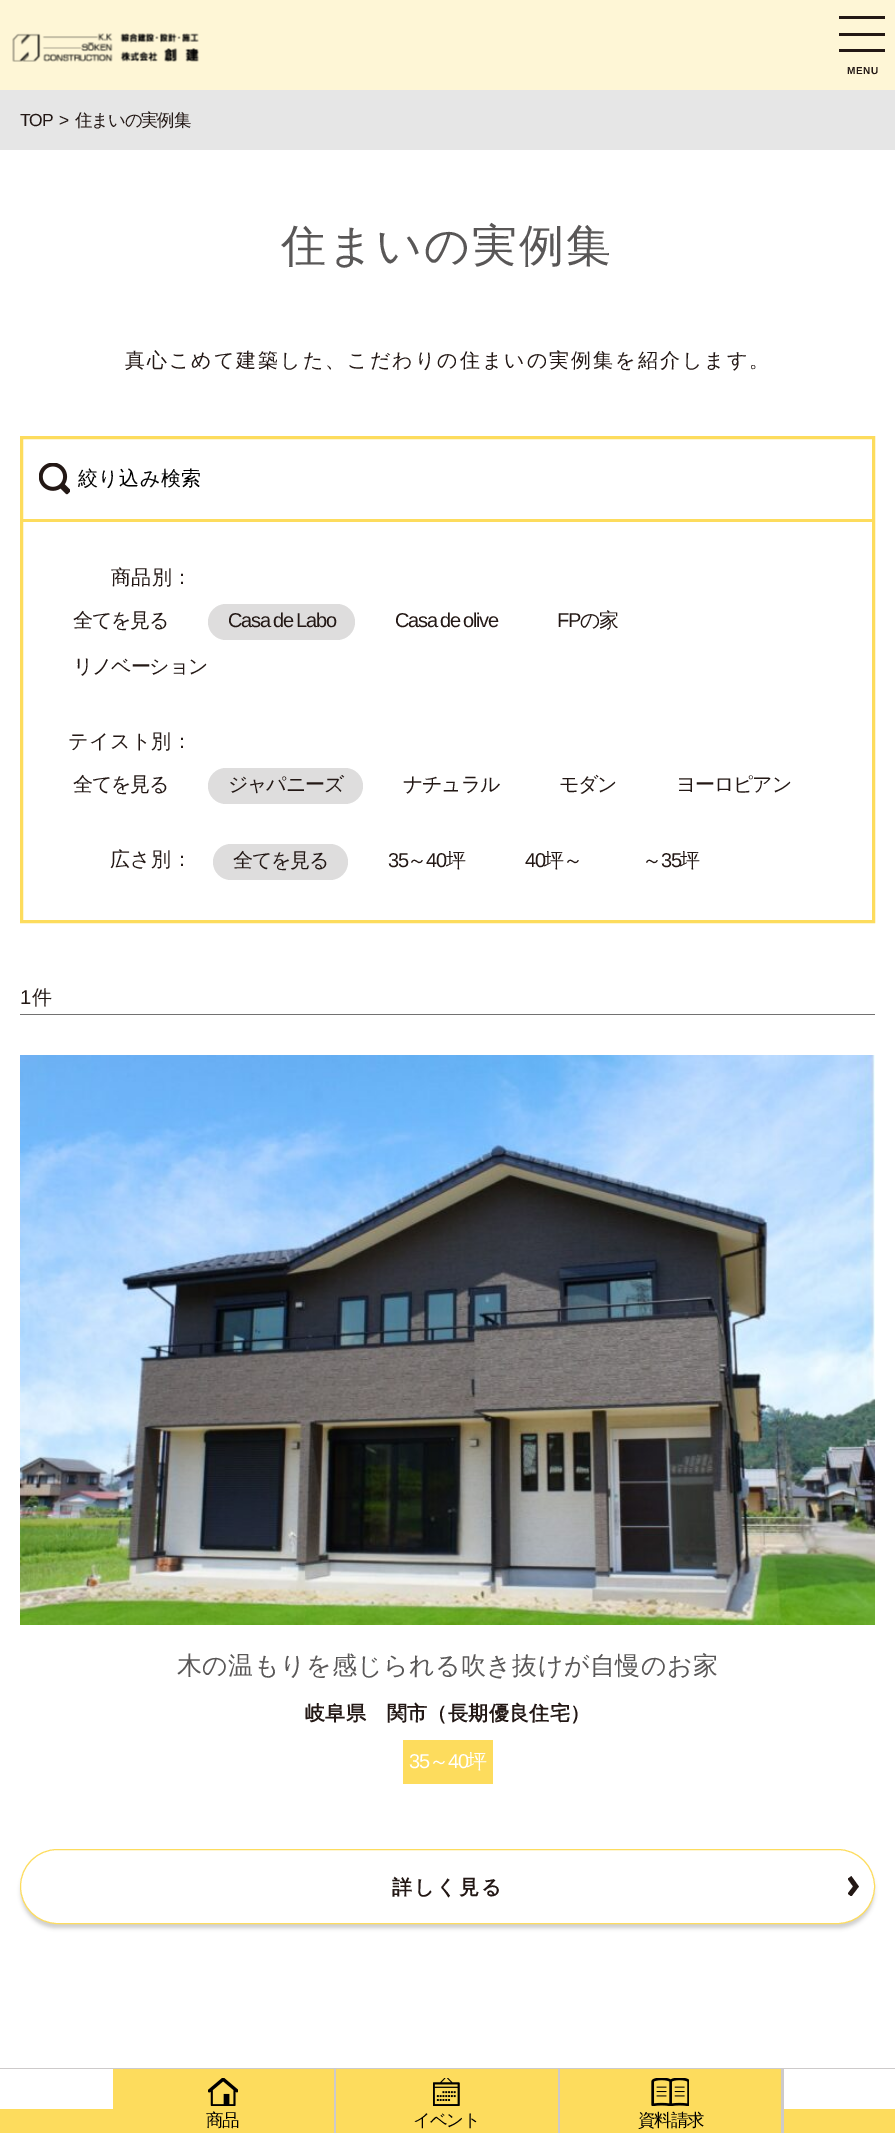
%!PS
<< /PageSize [895 2133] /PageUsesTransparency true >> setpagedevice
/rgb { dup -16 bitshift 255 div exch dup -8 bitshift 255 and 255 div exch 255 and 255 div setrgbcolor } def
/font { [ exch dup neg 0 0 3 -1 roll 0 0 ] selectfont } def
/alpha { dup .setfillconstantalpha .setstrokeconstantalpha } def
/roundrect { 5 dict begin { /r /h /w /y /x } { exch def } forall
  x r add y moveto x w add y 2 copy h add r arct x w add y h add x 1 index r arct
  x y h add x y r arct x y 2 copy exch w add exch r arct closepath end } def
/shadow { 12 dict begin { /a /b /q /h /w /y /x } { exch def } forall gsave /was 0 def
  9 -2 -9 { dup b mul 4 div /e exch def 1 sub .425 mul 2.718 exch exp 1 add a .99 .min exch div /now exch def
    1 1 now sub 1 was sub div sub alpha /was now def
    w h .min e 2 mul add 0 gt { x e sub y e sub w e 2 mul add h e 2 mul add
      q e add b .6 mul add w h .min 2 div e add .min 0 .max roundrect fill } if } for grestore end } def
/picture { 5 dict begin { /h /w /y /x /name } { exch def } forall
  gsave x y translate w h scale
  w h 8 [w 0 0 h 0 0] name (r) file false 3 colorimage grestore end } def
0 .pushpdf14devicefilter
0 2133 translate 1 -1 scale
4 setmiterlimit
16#FFFFFF rgb
0 0 895 2133 rectfill
16#FEF6D6 rgb
0 0 895 90 rectfill
(pic1.raw) 12 33 187 29 picture
16#231815 rgb
839 16 46 3 rectfill
839 33 46 3 rectfill
839 49 46 3 rectfill
/LiberationSans-Bold 10 font
847 74 moveto 0.5 0 (MENU) ashow
16#E6E6E6 rgb
0 90 895 60 rectfill
/LiberationSans-Regular 17.5 font
16#231815 rgb
20 126 moveto -1.25 0 (TOP) ashow
59 126 moveto -1.25 0 (>) ashow
/WenQuanYiZenHei-Medium 17.5 font
75 126 moveto -1.25 0 (住まいの実例集) ashow
/WenQuanYiZenHei-Medium 45 font
16#595757 rgb
281 261 moveto 2 0 (住まいの実例集) ashow
/WenQuanYiZenHei-Medium 20 font
16#231815 rgb
125 367 moveto 2 0 (真心こめて建築した、こだわりの住まいの実例集を紹介します。) ashow
16#FDDC5D rgb
3 setlinewidth
21.5 437.5 852 484 rectstroke
23 519 850 3 rectfill
(pic2.raw) 39 463 31 32 picture
16#000000 rgb
78 485 moveto 0.4 0 (絞り込み検索) ashow
16#231815 rgb
111 584 moveto 0.4 0 (商品別：) ashow
73 627 moveto -1.25 0 (全てを見る) ashow
16#DEDDDD rgb
208 604 147 36 18 roundrect fill
/LiberationSans-Regular 20 font
16#231815 rgb
228 627 moveto -1 0 32 -1.25 0 (Casa de Labo) awidthshow
395 627 moveto -1 0 32 -1.25 0 (Casa de olive) awidthshow
557 627 moveto -1.25 0 (FP) ashow
/WenQuanYiZenHei-Medium 20 font
580 627 moveto -1.25 0 (の家) ashow
73 673 moveto -1.25 0 (リノベーション) ashow
68 748 moveto 0.4 0 (テイスト別：) ashow
73 791 moveto -1.25 0 (全てを見る) ashow
16#DEDDDD rgb
208 768 155 36 18 roundrect fill
16#231815 rgb
228 791 moveto -1.25 0 (ジャパニーズ) ashow
403 791 moveto -1.25 0 (ナチュラル) ashow
559 791 moveto -1.25 0 (モダン) ashow
676 791 moveto -1.25 0 (ヨーロピアン) ashow
110 866 moveto 0.4 0 (広さ別：) ashow
16#DEDDDD rgb
213 844 135 36 18 roundrect fill
16#231815 rgb
233 867 moveto -1.25 0 (全てを見る) ashow
/LiberationSans-Regular 20 font
388 867 moveto -1.25 0 (35) ashow
/WenQuanYiZenHei-Medium 20 font
407 867 moveto -1.25 0 (～) ashow
/LiberationSans-Regular 20 font
426 867 moveto -1.25 0 (40) ashow
/WenQuanYiZenHei-Medium 20 font
446 867 moveto -1.25 0 (坪) ashow
/LiberationSans-Regular 20 font
525 867 moveto -1.25 0 (40) ashow
/WenQuanYiZenHei-Medium 20 font
544 867 moveto -1.25 0 (坪～) ashow
642 867 moveto -1.25 0 (～) ashow
/LiberationSans-Regular 20 font
661 867 moveto -1.25 0 (35) ashow
/WenQuanYiZenHei-Medium 20 font
680 867 moveto -1.25 0 (坪) ashow
16#727171 rgb
20 1014 855 1 rectfill
/LiberationSans-Regular 20 font
16#231815 rgb
20 1004 moveto 0.4 0 (1) ashow
/WenQuanYiZenHei-Medium 20 font
32 1004 moveto 0.4 0 (件) ashow
(pic3.raw) 20 1055 855 570 picture
/WenQuanYiZenHei-Medium 25 font
16#595757 rgb
177 1674 moveto 0.4 0 (木の温もりを感じられる吹き抜けが自慢のお家) ashow
/WenQuanYiZenHei-Bold 20 font
16#231815 rgb
305 1720 moveto 0.4 0 (岐阜県　関市（長期優良住宅）) ashow
16#FDDC5D rgb
403 1740 90 44 rectfill
/LiberationSans-Regular 20 font
16#FFFFFF rgb
409 1768 moveto -1.25 0 (35) ashow
/WenQuanYiZenHei-Medium 20 font
429 1768 moveto -1.25 0 (～) ashow
/LiberationSans-Regular 20 font
448 1768 moveto -1.25 0 (40) ashow
/WenQuanYiZenHei-Medium 20 font
467 1768 moveto -1.25 0 (坪) ashow
gsave
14 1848 moveto 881 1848 lineto 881 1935 lineto 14 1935 lineto closepath 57.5 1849 moveto 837.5 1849 lineto 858 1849 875 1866 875 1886.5 curveto 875 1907 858 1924 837.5 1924 curveto 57.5 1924 lineto 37 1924 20 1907 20 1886.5 curveto 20 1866 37 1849 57.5 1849 curveto closepath eoclip newpath
16#CECECE rgb
21 1855 853 73 36.5 2 1 shadow
grestore
16#FDDC5D rgb
1 setlinewidth
20.5 1849.5 854 74 37 roundrect stroke
/WenQuanYiZenHei-Bold 20 font
16#231815 rgb
392 1894 moveto 2 0 (詳しく見る) ashow
gsave
848 1876 12 20 rectclip
4.6 setlinewidth
849.5 1895 moveto 856 1886.5 lineto 849.5 1877.5 lineto stroke
grestore
16#FDDC5D rgb
0 2109 895 24 rectfill
16#CDCACA rgb
0 2068 895 1 rectfill
16#FDDC5D rgb
113 2069 221 40 rectfill
16#CDCACA rgb
334 2069 2 64 rectfill
(pic4.raw) 208 2078 30 28 picture
/WenQuanYiZenHei-Medium 17.5 font
16#000000 rgb
206 2126 moveto -1.25 0 (商品) ashow
16#FDDC5D rgb
336 2069 222 40 rectfill
16#CDCACA rgb
558 2069 2 64 rectfill
(pic5.raw) 433 2078 27 28 picture
16#000000 rgb
413 2126 moveto -1.25 0 (イベント) ashow
16#FDDC5D rgb
560 2069 221 40 rectfill
16#CDCACA rgb
781 2069 3 64 rectfill
(pic6.raw) 651 2078 38 28 picture
16#000000 rgb
638 2126 moveto -1.25 0 (資料請求) ashow
.poppdf14devicefilter showpage
